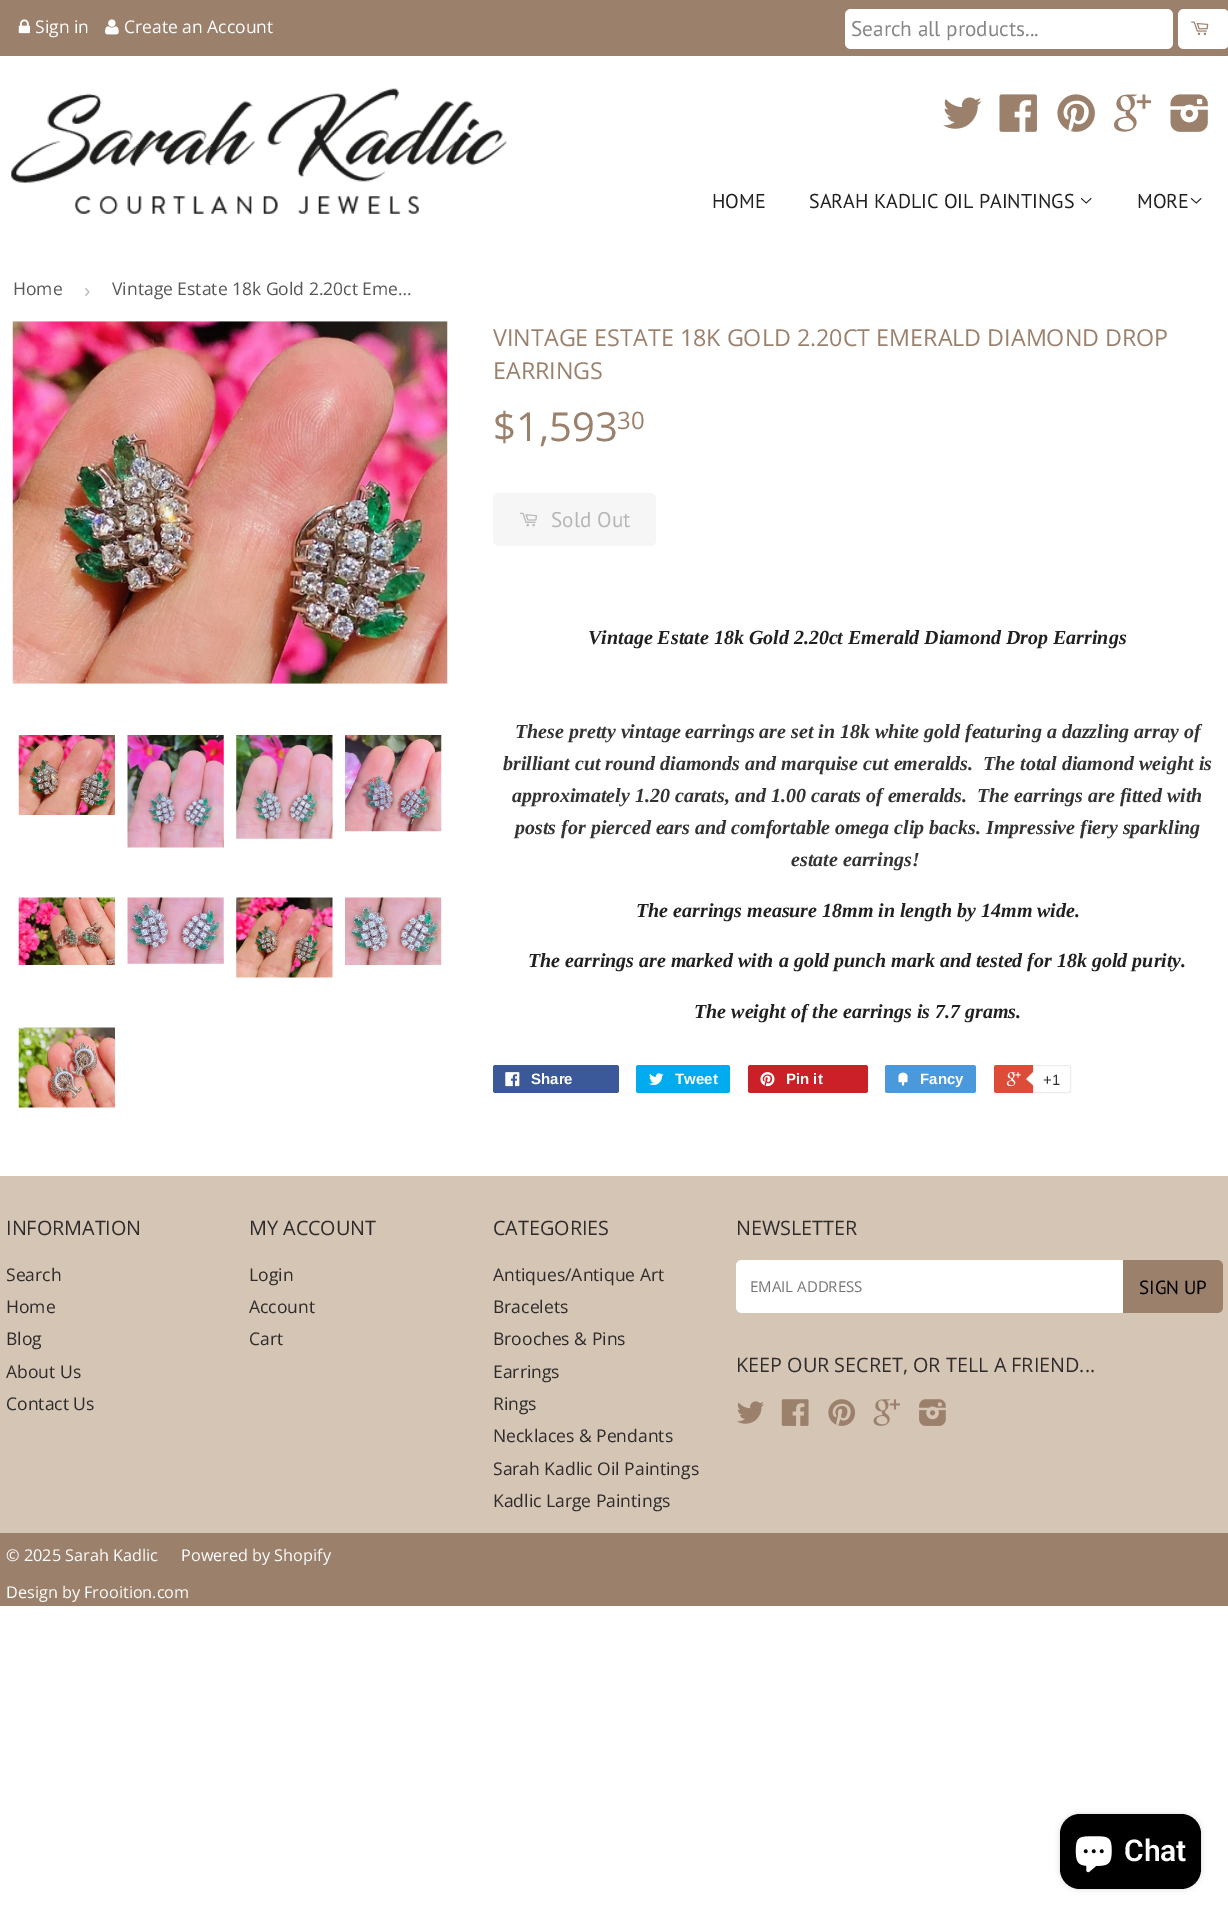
%!PS
<< /PageSize [1228 1914] /PageUsesTransparency true >> setpagedevice
/rgb { dup -16 bitshift 255 div exch dup -8 bitshift 255 and 255 div exch 255 and 255 div setrgbcolor } def
/font { [ exch dup neg 0 0 3 -1 roll 0 0 ] selectfont } def
/text { moveto show } def
/alpha { dup .setfillconstantalpha .setstrokeconstantalpha } def
/roundrect { 5 dict begin { /r /h /w /y /x } { exch def } forall
  x r add y moveto x w add y 2 copy h add r arct x w add y h add x 1 index r arct
  x y h add x y r arct x y 2 copy exch w add exch r arct closepath end } def
/shadow { 12 dict begin { /a /b /q /h /w /y /x } { exch def } forall gsave /was 0 def
  9 -2 -9 { dup b mul 4 div /e exch def 1 sub .425 mul 2.718 exch exp 1 add a .99 .min exch div /now exch def
    1 1 now sub 1 was sub div sub alpha /was now def
    w h .min e 2 mul add 0 gt { x e sub y e sub w e 2 mul add h e 2 mul add
      q e add b .6 mul add w h .min 2 div e add .min 0 .max roundrect fill } if } for grestore end } def
/picture { 5 dict begin { /h /w /y /x /name } { exch def } forall
  gsave x y translate w h scale
  w h 8 [w 0 0 h 0 0] name (r) file false 3 colorimage grestore end } def
0 .pushpdf14devicefilter
0 1914 translate 1 -1 scale
4 setmiterlimit
/s1 { /OpenSans-Regular 17.5 font 16#FFFFFF rgb } def
/s2 { /PTSans-Regular 21.25 font 16#858585 rgb } def
/s3 { /PTSans-Regular 20 font 16#202020 rgb } def
/s4 { /OpenSans-Regular 17.5 font 16#585858 rgb } def
/s5 { /LiberationSans-Regular 19 font 16#B6B6B6 rgb } def
/s6 { /OpenSans-Regular 23.3 font 16#9B806C rgb } def
/s7 { /OpenSans-Regular 40 font 16#9B806C rgb } def
/s8 { /OpenSans-Regular 24 font 16#9B806C rgb } def
/s9 { /PTSans-Regular 21.25 font 16#B6B6B6 rgb } def
/s10 { /LiberationSerif-BoldItalic 20 font 16#202020 rgb } def
/s11 { /LiberationSerif-BoldItalic 20 font 16#333333 rgb } def
/s12 { /LiberationSans-Bold 15 font 16#FFFFFF rgb } def
/s13 { /LiberationSans-Regular 15 font 16#333333 rgb } def
/s14 { /OpenSans-Regular 19.8 font 16#2D2C2B rgb } def
/s15 { /OpenSans-Regular 17.5 font 16#2D2C2B rgb } def
/s16 { /OpenSans-Regular 15 font 16#757575 rgb } def
/s17 { /PTSans-Regular 19 font 16#000000 rgb } def
/s18 { /OpenSans-Regular 16.25 font 16#FFFFFF rgb } def
/s19 { /Roboto-SemiBold 30 font 16#FFFFFF rgb } def
16#FFFFFF rgb
0 0 1228 1914 rectfill
16#9B806C rgb
0 0 1228 56 rectfill
(pic1.raw) 18 19 12 15 picture
s1
(Sign in) 35 33 text
(pic2.raw) 105 19 14 16 picture
(Create an Account) 124 33 text
845 9 328 40 6 roundrect fill
s2
(Search all products...) 851 36 text
16#FFFFFF rgb
1178 9 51 40 6 roundrect fill
(pic3.raw) 1191 21 18 14 picture
(pic4.raw) 11 88 496 126 picture
(pic5.raw) 943 97 39 32 picture
(pic6.raw) 999 94 38 38 picture
(pic7.raw) 1057 94 38 38 picture
(pic8.raw) 1114 94 38 38 picture
(pic9.raw) 1170 94 38 38 picture
s3
(HOME) 712 208 text
(SARAH KADLIC OIL PAINTINGS) 809 208 text
(pic10.raw) 1080 197 12 7 picture
(MORE) 1137 208 text
(pic10.raw) 1190 197 12 7 picture
s4
(Home) 13 295 text
s5
(›) 84 297 text
s4
(Vintage Estate 18k Gold 2.20ct Eme…) 112 295 text
(pic11.raw) 12 321 436 363 picture
(pic12.raw) 18 735 97 80 picture
(pic13.raw) 127 735 97 113 picture
(pic14.raw) 236 735 97 104 picture
(pic15.raw) 345 735 97 97 picture
(pic16.raw) 18 897 97 68 picture
(pic17.raw) 127 897 97 67 picture
(pic18.raw) 236 897 97 81 picture
(pic19.raw) 345 897 97 68 picture
(pic20.raw) 18 1027 97 81 picture
s6
(VINTAGE ESTATE 18K GOLD 2.20CT EMERALD DIAMOND DROP) 493 346 text
(EARRINGS) 493 379 text
s7
($1,593) 493 441 text
s8
(30) 617 429 text
16#F6F6F6 rgb
493 493 163 53 6 roundrect fill
(pic21.raw) 519 512 18 15 picture
s9
(Sold Out) 551 527 text
s10
(Vintage Estate 18k Gold 2.20ct Emerald Diamond Drop Earrings) 588 644 text
s11
(These pretty vintage earrings are set in 18k white gold featuring a dazzling array of) 515 738 text
(brilliant cut round diamonds and marquise cut emeralds.  The total diamond weight is) 503 770 text
(approximately 1.20 carats, and 1.00 carats of emeralds.  The earrings are fitted with) 512 802 text
(posts for pierced ears and comfortable omega clip backs. Impressive fiery sparkling) 515 834 text
(estate earrings!) 791 866 text
s10
(The earrings measure 18mm in length by 14mm wide.) 636 917 text
(The earrings are marked with a gold punch mark and tested for 18k gold purity.) 528 967 text
(The weight of the earrings is 7.7 grams.) 694 1018 text
16#3B5998 rgb
493 1065 126 28 2.5 roundrect fill
(pic22.raw) 505 1072 15 15 picture
s12
(Share) 531 1084 text
16#00ACED rgb
636 1065 94 28 2.5 roundrect fill
(pic23.raw) 649 1073 15 12 picture
s12
(Tweet) 675 1084 text
16#CB2027 rgb
748 1065 120 28 2.5 roundrect fill
(pic24.raw) 760 1072 15 15 picture
s12
(Pin it) 786 1084 text
16#4999DC rgb
885 1065 91 28 2.5 roundrect fill
(pic25.raw) 898 1072 10 14 picture
s12
(Fancy) 920 1084 text
16#DD4B39 rgb
994 1065 75 28 2.5 roundrect fill
(pic26.raw) 1006 1072 15 15 picture
16#FFFFFF rgb
1033.5 1065.5 moveto 1068.5 1065.5 lineto 1069.5 1065.5 1070.5 1066.5 1070.5 1067.5 curveto 1070.5 1090.5 lineto 1070.5 1091.5 1069.5 1092.5 1068.5 1092.5 curveto 1033.5 1092.5 lineto closepath gsave fill grestore
16#ECECEC rgb
stroke
1034 1071 moveto 1034 1086 lineto 1026 1079 lineto closepath fill
16#FFFFFF rgb
1035 1071 moveto 1035 1086 lineto 1027.5 1079 lineto closepath fill
s13
(+1) 1043 1085 text
16#D5C5B5 rgb
0 1176 1228 357 rectfill
s14
(INFORMATION) 6 1235 text
s15
(Search) 6 1281 text
(Home) 6 1313 text
(Blog) 6 1345 text
(About Us) 6 1378 text
(Contact Us) 6 1410 text
s14
(MY ACCOUNT) 249 1235 text
s15
(Login) 249 1281 text
(Account) 249 1313 text
(Cart) 249 1345 text
s14
(CATEGORIES) 493 1235 text
s15
(Antiques/Antique Art) 493 1281 text
(Bracelets) 493 1313 text
(Brooches & Pins) 493 1345 text
(Earrings) 493 1378 text
(Rings) 493 1410 text
(Necklaces & Pendants) 493 1442 text
(Sarah Kadlic Oil Paintings) 493 1475 text
(Kadlic Large Paintings) 493 1507 text
s14
(NEWSLETTER) 736 1235 text
16#FFFFFF rgb
742 1260 moveto 1123 1260 lineto 1123 1313 lineto 742 1313 lineto 738.5 1313 736 1310.5 736 1307 curveto 736 1266 lineto 736 1262.5 738.5 1260 742 1260 curveto closepath fill
0.2 alpha
742 1260 moveto 1122 1260 lineto 1122 1312 lineto 742 1312 lineto 739 1312 736 1310 736 1306 curveto 736 1266 lineto 736 1263 739 1260 742 1260 curveto closepath 742 1261 moveto 1122 1261 lineto 1122 1311 lineto 742 1311 lineto 740 1311 738 1309 738 1306 curveto 738 1266 lineto 738 1263 740 1261 742 1261 curveto closepath eofill
1 alpha
s16
(EMAIL ADDRESS) 750 1292 text
16#9B806C rgb
1123 1260 moveto 1217 1260 lineto 1220.5 1260 1223 1262.5 1223 1266 curveto 1223 1307 lineto 1223 1310.5 1220.5 1313 1217 1313 curveto 1123 1313 lineto closepath fill
s17
(SIGN UP) 1139 1294 text
s14
(KEEP OUR SECRET, OR TELL A FRIEND...) 736 1372 text
(pic27.raw) 737 1401 27 23 picture
(pic28.raw) 781 1399 28 27 picture
(pic29.raw) 828 1399 28 27 picture
(pic30.raw) 873 1399 27 27 picture
(pic31.raw) 919 1399 27 27 picture
16#9B806C rgb
0 1533 1228 73 rectfill
s18
(© 2025 Sarah Kadlic) 6 1561 text
(Powered by Shopify) 181 1561 text
(Design by Frooition.com) 6 1598 text
16#000000 rgb
1060 1814 141 75 20 3 0.15 shadow
1060 1814 141 75 20 roundrect fill
(pic32.raw) 1075 1836 37 37 picture
s19
(Chat) 1124 1861 text
.poppdf14devicefilter showpage
